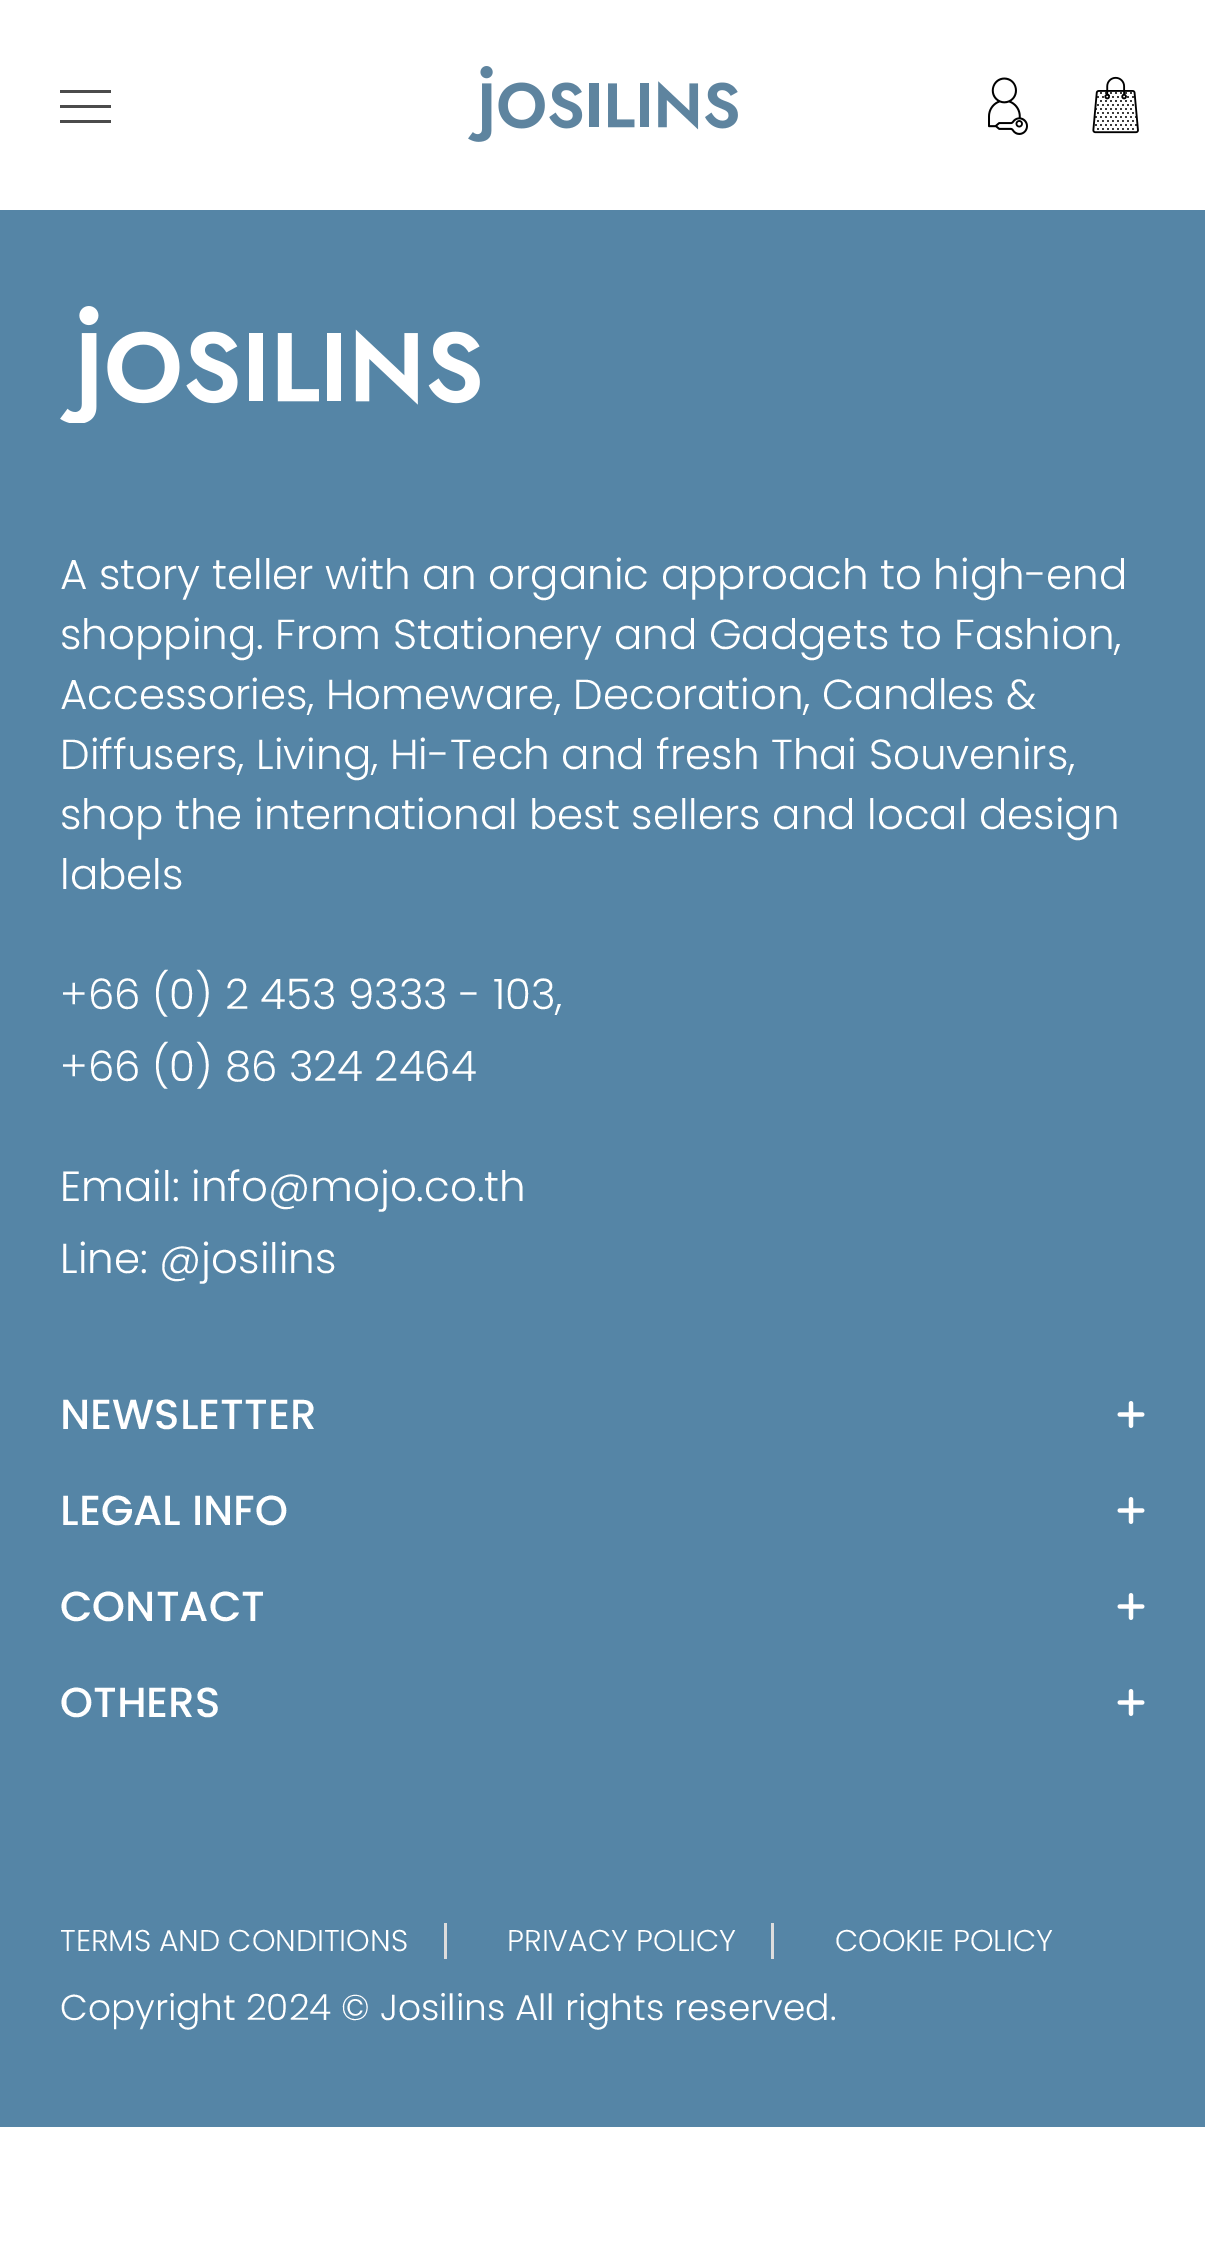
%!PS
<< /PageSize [1205 2262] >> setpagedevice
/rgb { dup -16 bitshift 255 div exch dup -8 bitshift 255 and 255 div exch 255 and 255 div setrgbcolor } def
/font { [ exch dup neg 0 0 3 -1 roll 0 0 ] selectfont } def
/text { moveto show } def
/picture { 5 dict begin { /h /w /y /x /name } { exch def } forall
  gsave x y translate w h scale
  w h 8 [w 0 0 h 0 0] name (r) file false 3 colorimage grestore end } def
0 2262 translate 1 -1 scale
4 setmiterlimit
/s1 { /Poppins-Light 42 font 16#FFFFFF rgb } def
/s2 { /Poppins-Medium 42 font 16#FFFFFF rgb } def
/s3 { /Poppins-Light 30 font 16#FFFFFF rgb } def
/s4 { /Poppins-Light 36 font 16#FFFFFF rgb } def
16#FFFFFF rgb
0 0 1205 2262 rectfill
16#4B4B4B rgb
60 90 51 3 rectfill
60 105 51 3 rectfill
60 120 51 3 rectfill
(pic1.raw) 468 66 270 76 picture
(pic2.raw) 988 77 40 58 picture
(pic3.raw) 1092 76 47 58 picture
16#5585A6 rgb
0 210 1205 1917 rectfill
(pic4.raw) 60 306 420 117 picture
s1
(A story teller with an organic approach to high-end) 60 589 text
(shopping. From Stationery and Gadgets to Fashion,) 60 649 text
(Accessories, Homeware, Decoration, Candles &) 60 709 text
(Diffusers, Living, Hi-Tech and fresh Thai Souvenirs,) 60 769 text
(shop the international best sellers and local design) 60 829 text
(labels) 60 889 text
(+66 \(0\) 2 453 9333 - 103,) 60 1009 text
(+66 \(0\) 86 324 2464) 60 1081 text
(Email: info@mojo.co.th) 60 1201 text
(Line: @josilins) 60 1273 text
s2
(NEWSLETTER) 60 1429 text
(pic5.raw) 1117 1401 28 27 picture
(LEGAL INFO) 60 1525 text
(pic5.raw) 1117 1497 28 27 picture
(CONTACT) 60 1621 text
(pic5.raw) 1117 1593 28 27 picture
(OTHERS) 60 1717 text
(pic5.raw) 1117 1689 28 27 picture
s3
(TERMS AND CONDITIONS) 60 1951 text
16#DDDDDD rgb
444 1923 3 36 rectfill
s3
(PRIVACY POLICY) 507 1951 text
16#DDDDDD rgb
771 1923 3 36 rectfill
s3
(COOKIE POLICY) 835 1951 text
s4
(Copyright 2024 © Josilins All rights reserved.) 60 2020 text
showpage
